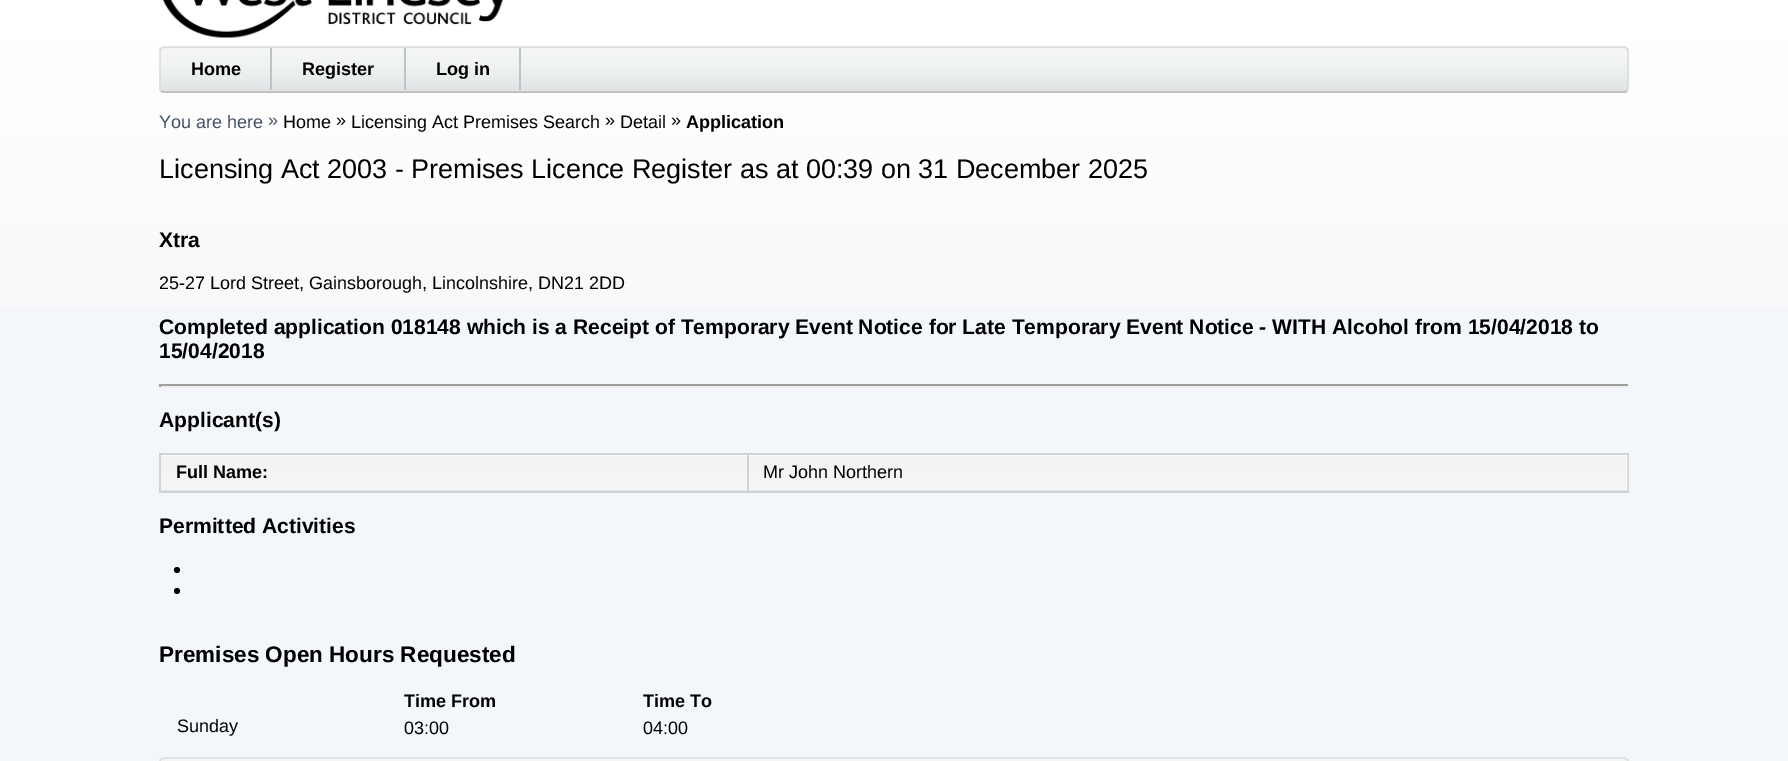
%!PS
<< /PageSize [1788 761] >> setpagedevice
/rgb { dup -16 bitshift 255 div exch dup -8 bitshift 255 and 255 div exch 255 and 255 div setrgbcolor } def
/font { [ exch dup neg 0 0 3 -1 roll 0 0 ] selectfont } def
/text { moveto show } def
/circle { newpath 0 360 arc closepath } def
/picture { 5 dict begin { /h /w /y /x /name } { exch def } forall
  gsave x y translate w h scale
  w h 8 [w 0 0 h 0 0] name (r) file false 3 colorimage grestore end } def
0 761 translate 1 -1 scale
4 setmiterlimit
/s1 { /LiberationSans-Bold 18 font 16#000000 rgb } def
/s2 { /LiberationSans-Regular 18 font 16#425166 rgb } def
/s3 { /LiberationSans-Regular 18 font 16#000000 rgb } def
/s4 { /LiberationSans-Regular 27 font 16#000000 rgb } def
/s5 { /LiberationSans-Bold 21.05 font 16#000000 rgb } def
/s6 { /LiberationSans-Bold 22.5 font 16#000000 rgb } def
16#F3F6FA rgb
0 0 1788 761 rectfill
(pic1.raw) 0 0 1788 309 picture
(pic2.raw) 162 0 342 38 picture
(pic3.raw) 159 48 1470 45 picture
16#BDBFBF rgb
1.5 setlinewidth
1627 91 moveto 1624.5 92 lineto 163.5 92 lineto 161 91 lineto stroke
16#DDDEDF rgb
161 91 moveto 160 89 lineto 160 50.5 lineto 160.5 48.5 lineto 161.5 48 162.5 47.5 163.5 47 curveto 1624.5 47 lineto 1625.5 47.5 1626.5 48 1627.5 48.5 curveto 1628 50.5 lineto 1628 89 lineto 1627 91 lineto stroke
16#BEC3C9 rgb
270 48 2 42 rectfill
s1
(Home) 191 75 text
16#BEC3C9 rgb
404 48 2 42 rectfill
s1
(Register) 302 75 text
16#BEC3C9 rgb
519 48 2 42 rectfill
s1
(Log in) 436 75 text
s2
(You are here) 159 128 text
(») 268 126 text
s3
(Home) 283 128 text
(») 336 126 text
(Licensing Act Premises Search) 351 128 text
(») 605 126 text
(Detail) 620 128 text
(») 671 126 text
s1
(Application) 686 128 text
s4
(Licensing Act 2003 - Premises Licence Register as at 00:39 on 31 December 2025) 159 178 text
s5
(Xtra) 159 247 text
s3
(25-27 Lord Street, Gainsborough, Lincolnshire, DN21 2DD) 159 289 text
s5
(Completed application 018148 which is a Receipt of Temporary Event Notice for Late Temporary Event Notice - WITH Alcohol from 15/04/2018 to) 159 334 text
(15/04/2018) 159 358 text
16#9F9F9F rgb
159 384 1470 2 rectfill
16#EEEEEE rgb
1628 384 1 3 rectfill
159 386 1470 2 rectfill
16#9F9F9F rgb
159 384 2 3 rectfill
s5
(Applicant\(s\)) 159 427 text
(pic4.raw) 161 455 1467 36 picture
16#CED3D9 rgb
747 453 882 2 rectfill
1628 453 1 39 rectfill
747 491 882 2 rectfill
748 453 1 39 rectfill
159 453 590 2 rectfill
159 491 590 2 rectfill
159 453 2 39 rectfill
s1
(Full Name:) 176 478 text
s3
(Mr John Northern) 763 478 text
s5
(Permitted Activities) 159 533 text
177 570 3 circle fill
177 591 3 circle fill
s6
(Premises Open Hours Requested) 159 662 text
s1
(Time From) 404 707 text
(Time To) 643 707 text
s3
(Sunday) 177 732 text
(03:00) 404 734 text
(04:00) 643 734 text
(pic5.raw) 160 759 1468 2 picture
16#DDDEDF rgb
161 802 moveto 160 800 lineto 160 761.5 lineto 160.5 759.5 lineto 161.5 759 162.5 758.5 163.5 758 curveto 1624.5 758 lineto 1625.5 758.5 1626.5 759 1627.5 759.5 curveto 1628 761.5 lineto 1628 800 lineto 1627 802 lineto stroke
showpage
